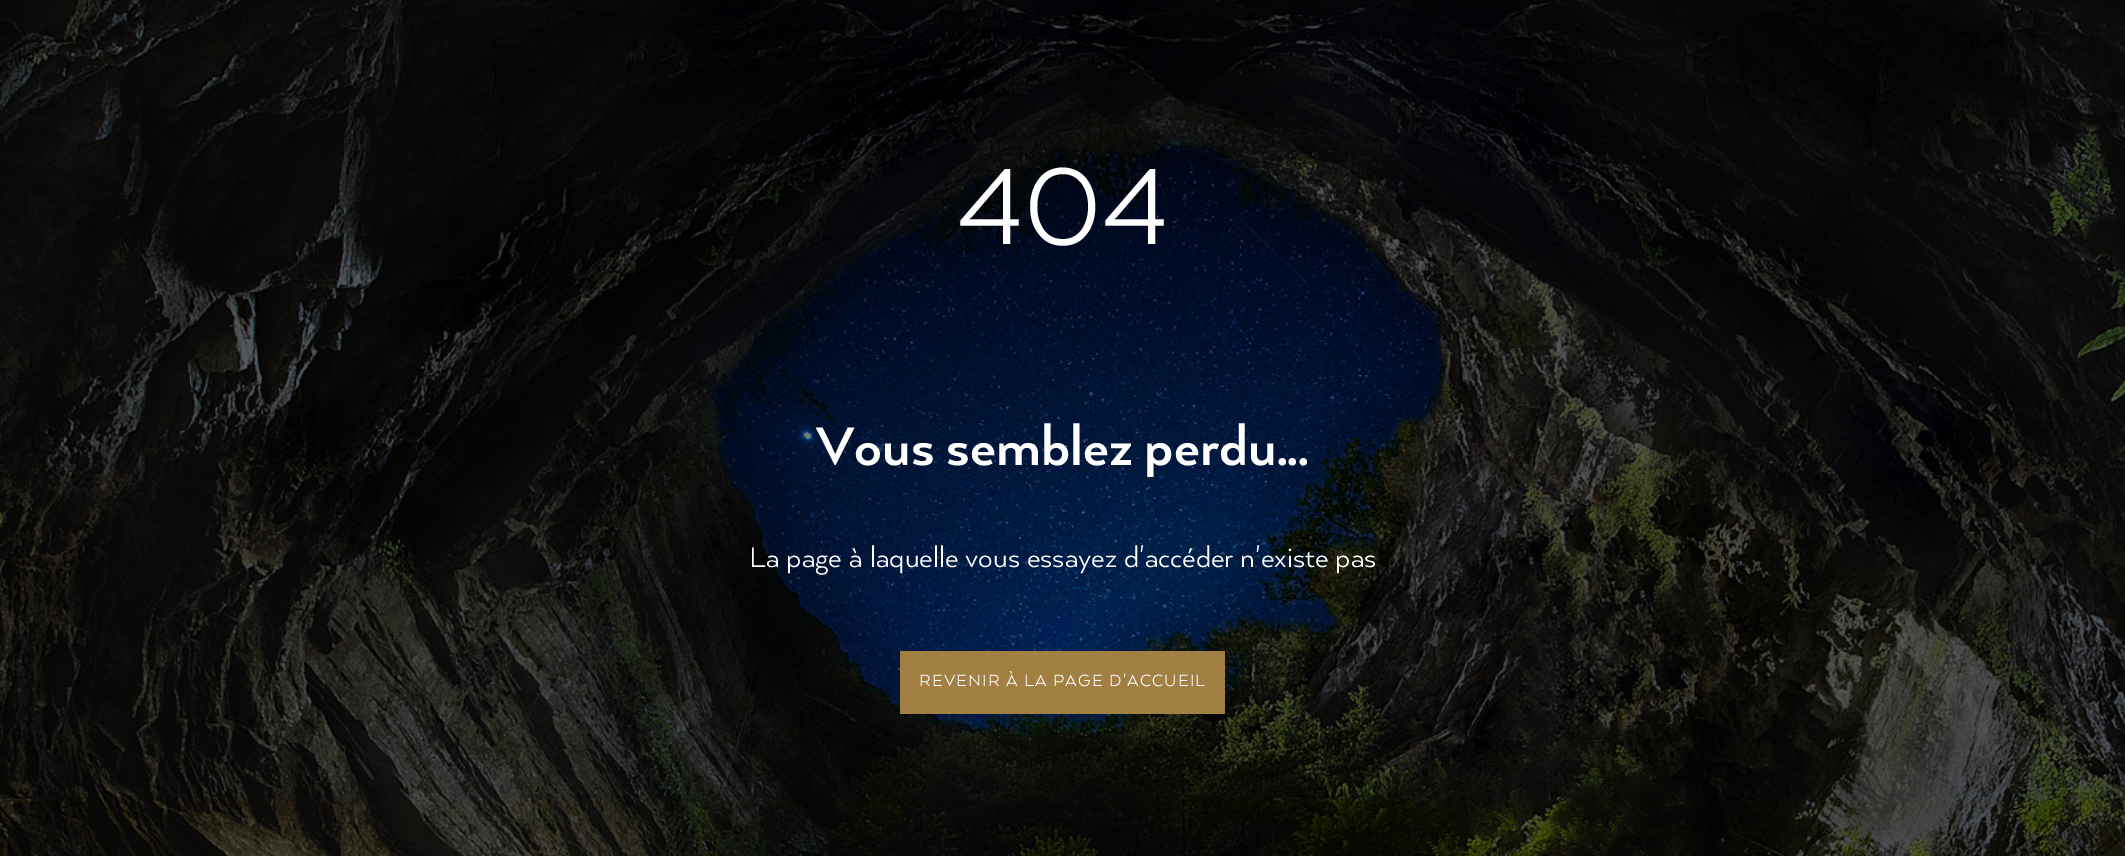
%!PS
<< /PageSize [2125 856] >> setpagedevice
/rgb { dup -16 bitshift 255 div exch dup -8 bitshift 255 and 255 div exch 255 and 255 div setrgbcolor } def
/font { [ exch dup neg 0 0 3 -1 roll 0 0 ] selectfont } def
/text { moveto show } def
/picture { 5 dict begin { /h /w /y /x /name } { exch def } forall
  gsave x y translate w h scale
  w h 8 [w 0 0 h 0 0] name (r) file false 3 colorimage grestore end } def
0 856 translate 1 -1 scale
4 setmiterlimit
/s1 { /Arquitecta-Regular 125 font 16#FFFFFF rgb } def
/s2 { /Arquitecta-Bold 62.5 font 16#FFFFFF rgb } def
/s3 { /Arquitecta-Regular 32.5 font 16#FFFFFF rgb } def
16#FFFFFF rgb
0 0 2125 856 rectfill
(pic1.raw) 0 0 2125 856 picture
s1
(404) 957 244 text
s2
(Vous semblez perdu...) 816 465 text
s3
(La page à laquelle vous essayez d'accéder n'existe pas) 749 567 text
16#A28044 rgb
900 651 325 63 rectfill
/Arquitecta-Regular 18.75 font
16#FFFFFF rgb
919 686 moveto 1.25 0 (REVENIR À LA PAGE D'ACCUEIL) ashow
showpage
